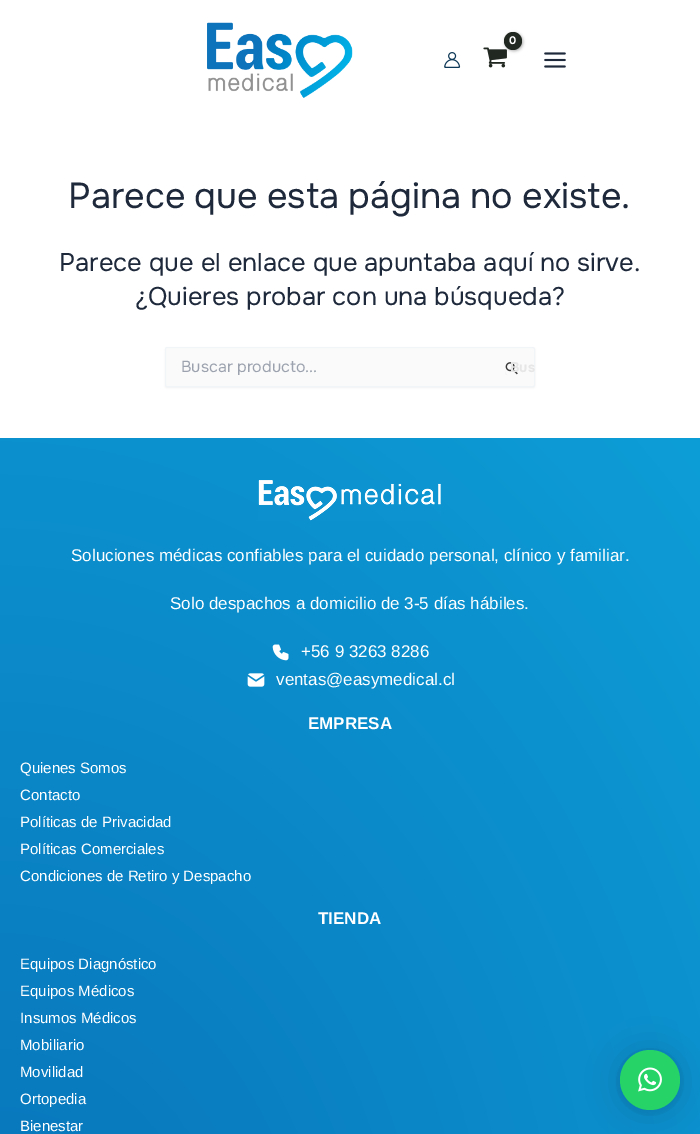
%!PS
<< /PageSize [700 1134] /PageUsesTransparency true >> setpagedevice
/rgb { dup -16 bitshift 255 div exch dup -8 bitshift 255 and 255 div exch 255 and 255 div setrgbcolor } def
/font { [ exch dup neg 0 0 3 -1 roll 0 0 ] selectfont } def
/text { moveto show } def
/alpha { dup .setfillconstantalpha .setstrokeconstantalpha } def
/circle { newpath 0 360 arc closepath } def
/roundrect { 5 dict begin { /r /h /w /y /x } { exch def } forall
  x r add y moveto x w add y 2 copy h add r arct x w add y h add x 1 index r arct
  x y h add x y r arct x y 2 copy exch w add exch r arct closepath end } def
/shadow { 12 dict begin { /a /b /q /h /w /y /x } { exch def } forall gsave /was 0 def
  9 -2 -9 { dup b mul 4 div /e exch def 1 sub .425 mul 2.718 exch exp 1 add a .99 .min exch div /now exch def
    1 1 now sub 1 was sub div sub alpha /was now def
    w h .min e 2 mul add 0 gt { x e sub y e sub w e 2 mul add h e 2 mul add
      q e add b .6 mul add w h .min 2 div e add .min 0 .max roundrect fill } if } for grestore end } def
/picture { 5 dict begin { /h /w /y /x /name } { exch def } forall
  gsave x y translate w h scale
  w h 8 [w 0 0 h 0 0] name (r) file false 3 colorimage grestore end } def
0 .pushpdf14devicefilter
0 1134 translate 1 -1 scale
4 setmiterlimit
/s1 { /Onest-Bold 11 font 16#FFFFFF rgb } def
/s2 { /Onest-Regular 25.5 font 16#1E293B rgb } def
/s3 { /Onest-Regular 16 font 16#9CA3AF rgb } def
/s4 { /Onest-Bold 14 font 16#E6E6E6 rgb } def
/s5 { /LiberationSans-Regular 17 font 16#FFFFFF rgb } def
/s6 { /LiberationSans-Bold 17 font 16#FFFFFF rgb } def
/s7 { /LiberationSans-Regular 15 font 16#FFFFFF rgb } def
16#FFFFFF rgb
0 0 700 1134 rectfill
(pic1.raw) 207 22 146 76 picture
(pic2.raw) 483 47 24 21 picture
16#000000 rgb
505 33 18 18 9 1.5 0.3 shadow
16#212721 rgb
513 41 9 circle fill
s1
(0) 509 44 text
(pic3.raw) 444 52 17 16 picture
(pic4.raw) 544 52 22 16 picture
/Onest-Regular 36 font
16#1E293B rgb
68 208 moveto -0.5 0 32 (Parece que esta página no existe.) widthshow
s2
(Parece que el enlace que apuntaba aquí no sirve.) 59 271 text
(¿Quieres probar con una búsqueda?) 135 305 text
16#000000 rgb
165 348 370 40 2 1 0.05 shadow
16#FAFAFA rgb
165.5 347.5 369 39 1.5 roundrect gsave fill grestore
16#F2F5F7 rgb
stroke
s3
(Buscar producto...) 181 372 text
(pic5.raw) 505 362 13 13 picture
s4
(Bus) 510 372 text
gsave 0 438 moveto 700 438 lineto 700 1134 lineto 0 1134 lineto closepath clip newpath 0 1338 translate 990 1273 scale
<< /ShadingType 3 /ColorSpace /DeviceRGB /Coords [0 0 0 0 0 1] /Extend [true true] /Function << /FunctionType 2 /Domain [0 1] /C0 [0.031 0.447 0.725] /C1 [0.055 0.62 0.843] /N 1 >> >> shfill grestore
(pic6.raw) 258 480 183 41 picture
s5
(Soluciones médicas confiables para el cuidado personal, clínico y familiar.) 71 561 text
(Solo despachos a domicilio de 3-5 días hábiles.) 170 609 text
(pic7.raw) 272 644 17 17 picture
(+56 9 3263 8286) 301 657 text
(pic8.raw) 247 673 18 14 picture
(ventas@easymedical.cl) 276 685 text
s6
(EMPRESA) 308 729 text
s7
(Quienes Somos) 20 773 text
(Contacto) 20 800 text
(Políticas de Privacidad) 20 827 text
(Políticas Comerciales) 20 854 text
(Condiciones de Retiro y Despacho) 20 881 text
s6
(TIENDA) 318 924 text
s7
(Equipos Diagnóstico) 20 969 text
(Equipos Médicos) 20 996 text
(Insumos Médicos) 20 1023 text
(Mobiliario) 20 1050 text
(Movilidad) 20 1077 text
(Ortopedia) 20 1104 text
(Bienestar) 20 1131 text
16#000000 rgb
620 1052 60 60 30 16 0.16 shadow
620 1051 60 60 30 3 0.06 shadow
16#25D366 rgb
650 1080 30 circle fill
(pic9.raw) 638 1067 24 25 picture
.poppdf14devicefilter showpage
